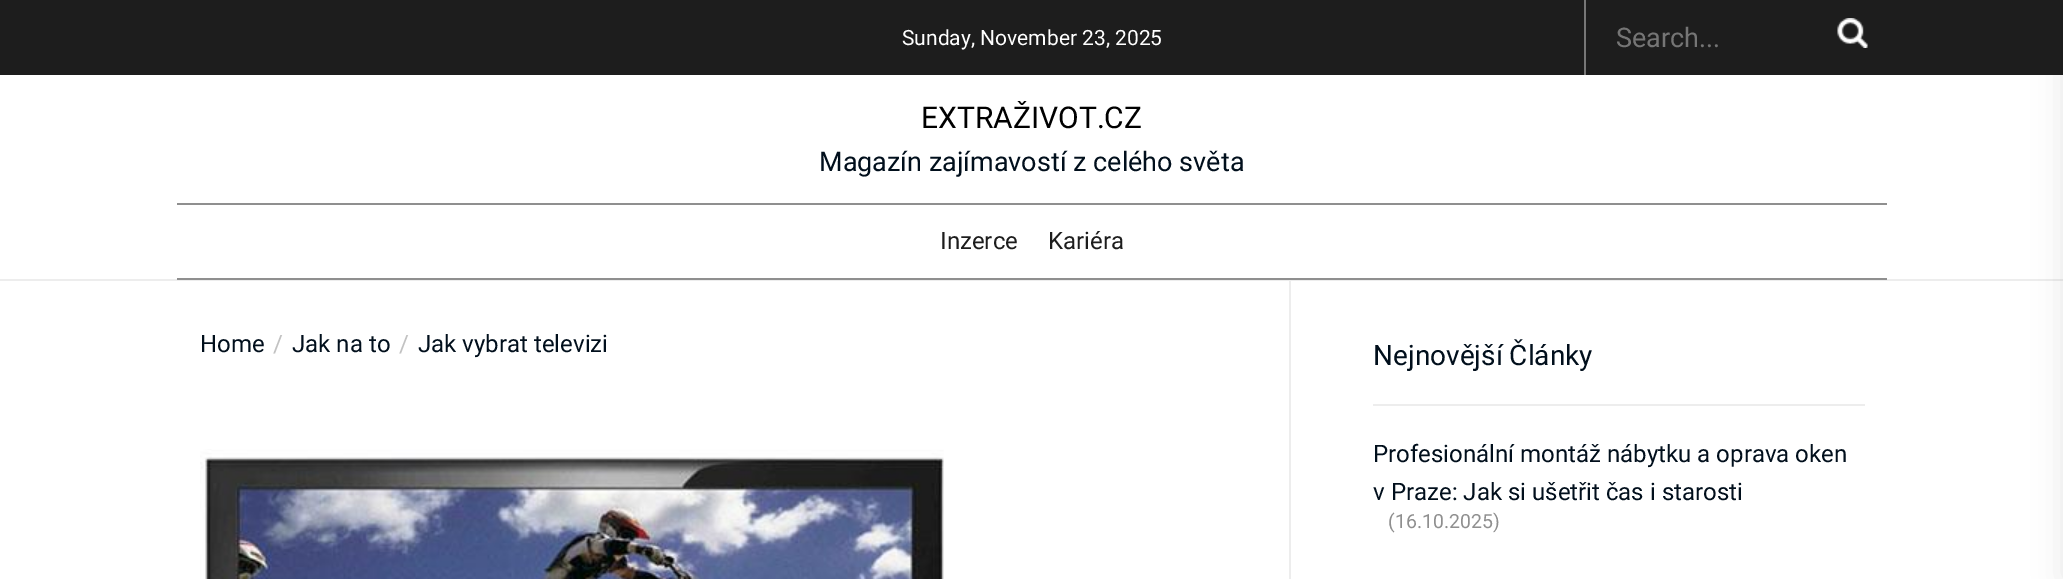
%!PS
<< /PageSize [2063 579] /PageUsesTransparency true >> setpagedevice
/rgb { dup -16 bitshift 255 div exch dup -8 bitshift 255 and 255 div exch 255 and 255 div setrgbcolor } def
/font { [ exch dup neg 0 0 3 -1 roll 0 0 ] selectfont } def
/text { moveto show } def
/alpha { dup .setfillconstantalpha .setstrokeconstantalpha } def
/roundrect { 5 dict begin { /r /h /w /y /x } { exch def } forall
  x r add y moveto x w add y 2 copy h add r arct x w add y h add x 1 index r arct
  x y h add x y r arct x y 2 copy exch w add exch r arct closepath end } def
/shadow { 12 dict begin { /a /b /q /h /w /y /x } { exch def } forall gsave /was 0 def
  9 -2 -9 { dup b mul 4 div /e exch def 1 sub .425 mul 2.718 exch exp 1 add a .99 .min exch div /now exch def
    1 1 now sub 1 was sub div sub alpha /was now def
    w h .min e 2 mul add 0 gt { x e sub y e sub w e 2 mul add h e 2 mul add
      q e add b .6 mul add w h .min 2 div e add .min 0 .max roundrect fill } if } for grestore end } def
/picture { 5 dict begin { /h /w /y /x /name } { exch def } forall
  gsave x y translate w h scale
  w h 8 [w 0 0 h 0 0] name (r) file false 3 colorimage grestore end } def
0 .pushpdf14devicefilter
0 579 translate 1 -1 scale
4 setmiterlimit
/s1 { /Roboto-Regular 21 font 16#FFFFFF rgb } def
/s2 { /Roboto-Regular 27 font 16#757575 rgb } def
/s3 { /Roboto-Regular 30 font 16#000000 rgb } def
/s4 { /Roboto-Regular 27 font 16#010F1C rgb } def
/s5 { /Roboto-Regular 24 font 16#1D1D1D rgb } def
/s6 { /Roboto-Regular 24 font 16#010F1C rgb } def
/s7 { /Roboto-Regular 24 font 16#C2C2C2 rgb } def
/s8 { /Roboto-Regular 28 font 16#010F1C rgb } def
/s9 { /Roboto-Regular 19.5 font 16#8F8F8F rgb } def
16#FFFFFF rgb
0 0 2063 579 rectfill
16#1D1D1D rgb
0 0 2063 75 rectfill
s1
(Sunday, November 23, 2025) 902 45 text
16#777777 rgb
1584 0 2 75 rectfill
s2
(Search...) 1616 47 text
(pic1.raw) 1837 18 31 30 picture
16#8F8F8F rgb
177 203 1710 2 rectfill
s3
(EXTRAŽIVOT.CZ) 921 128 text
s4
(Magazín zajímavostí z celého světa) 819 171 text
16#EDEDED rgb
0 279 2063 2 rectfill
16#8F8F8F rgb
177 278 1710 2 rectfill
s5
(Inzerce) 940 249 text
(Kariéra) 1048 249 text
s6
(Home) 200 352 text
s7
(/) 273 352 text
s6
(Jak na to) 292 352 text
s7
(/) 399 352 text
s6
(Jak vybrat televizi) 418 352 text
(pic2.raw) 200 449 744 130 picture
16#EDEDED rgb
1289 281 2 298 rectfill
1373 404 492 2 rectfill
s8
(Nejnovější Články) 1373 365 text
s6
(Profesionální montáž nábytku a oprava oken) 1373 462 text
(v Praze: Jak si ušetřit čas i starosti) 1373 500 text
s9
(\(16.10.2025\)) 1388 528 text
16#000000 rgb
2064 0 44 579 0 15 0.1 shadow
.poppdf14devicefilter showpage
